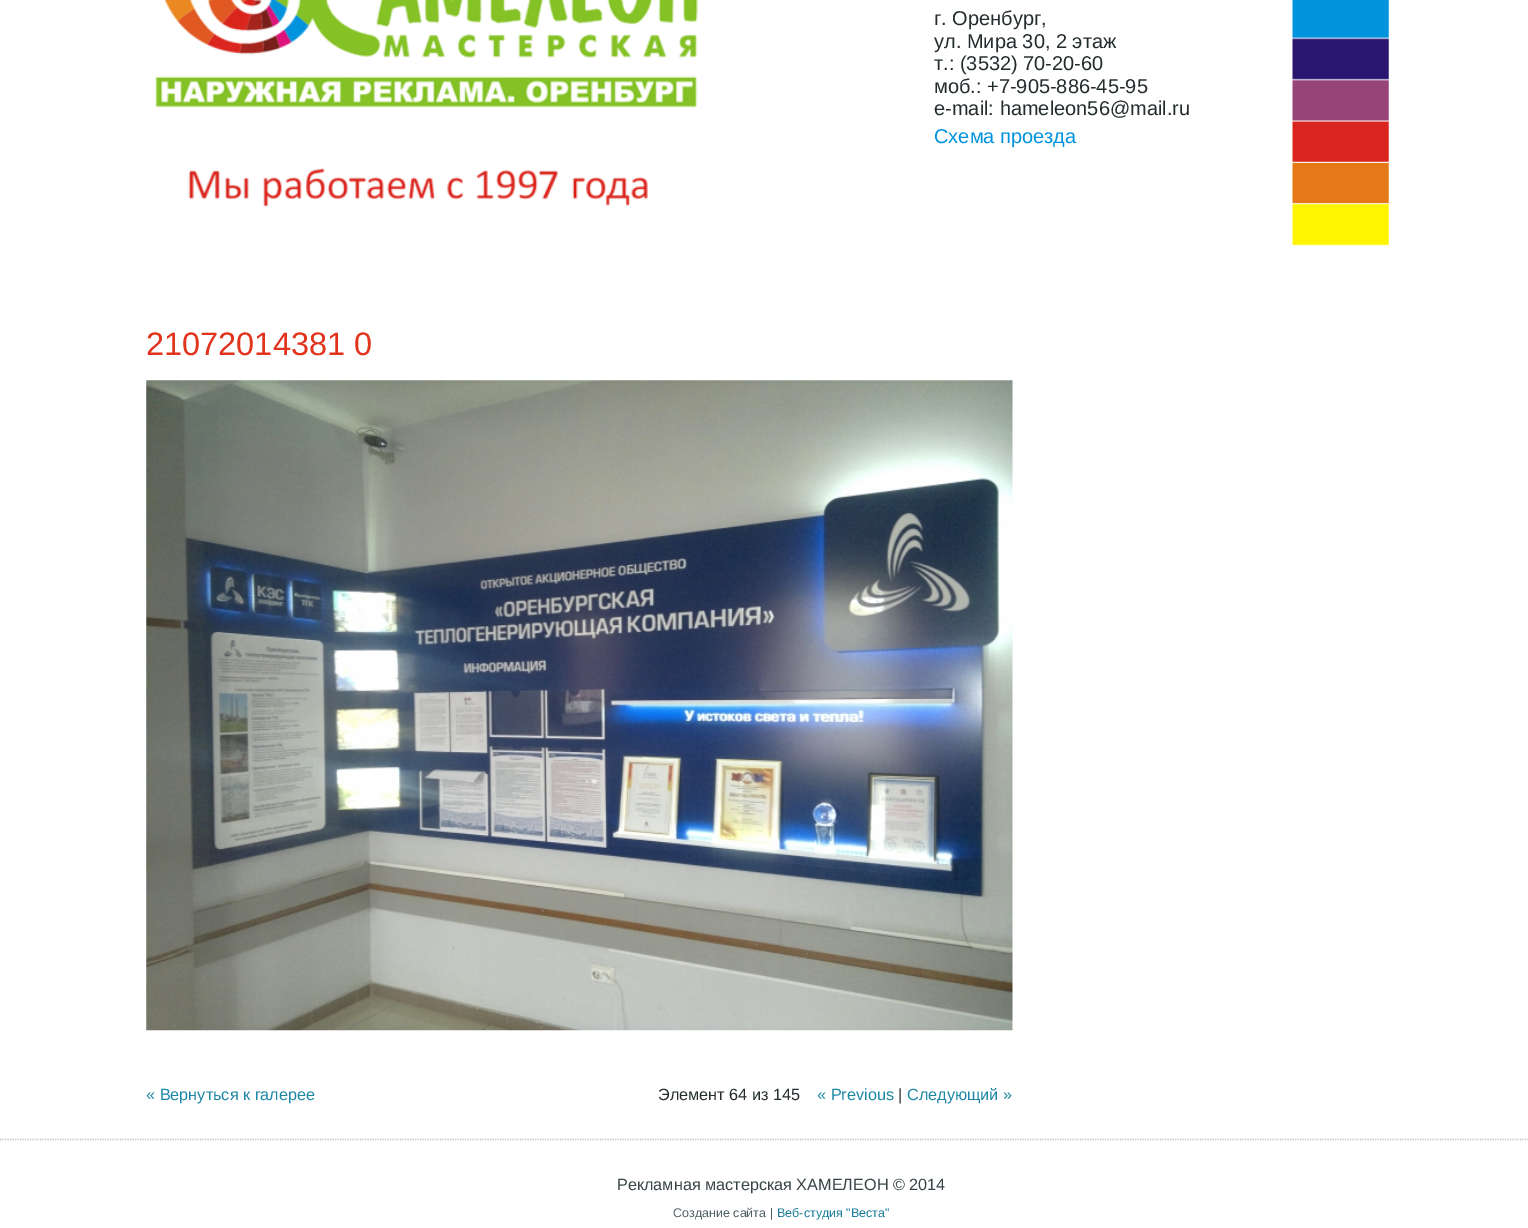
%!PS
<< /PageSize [1528 1228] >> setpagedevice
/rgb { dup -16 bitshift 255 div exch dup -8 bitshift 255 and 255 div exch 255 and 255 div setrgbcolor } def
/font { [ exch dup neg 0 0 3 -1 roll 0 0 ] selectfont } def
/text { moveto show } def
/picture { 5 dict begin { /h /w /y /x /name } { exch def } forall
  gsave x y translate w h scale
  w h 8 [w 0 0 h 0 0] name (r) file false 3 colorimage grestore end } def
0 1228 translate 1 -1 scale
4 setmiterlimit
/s1 { /LiberationSans-Regular 20 font 16#242C2E rgb } def
/s2 { /LiberationSans-Regular 20 font 16#0093DD rgb } def
/s3 { /LiberationSans-Regular 32.5 font 16#E2341D rgb } def
/s4 { /LiberationSans-Regular 16.25 font 16#1D87A5 rgb } def
/s5 { /LiberationSans-Regular 16.25 font 16#242C2E rgb } def
/s6 { /LiberationSans-Regular 16.25 font 16#384447 rgb } def
/s7 { /LiberationSans-Regular 12.5 font 16#4F6064 rgb } def
/s8 { /LiberationSans-Regular 12.5 font 16#1B7D98 rgb } def
16#FFFFFF rgb
0 0 1528 1228 rectfill
(pic1.raw) 155 0 543 207 picture
s1
(г. Оренбург,) 934 25 text
(ул. Мира 30, 2 этаж) 934 48 text
(т.: \(3532\) 70-20-60) 934 70 text
(моб.: +7-905-886-45-95) 934 93 text
(e-mail: hameleon56@mail.ru) 934 115 text
s2
(Схема проезда) 934 143 text
(pic2.raw) 1292 0 97 246 picture
s3
(21072014381 0) 146 355 text
(pic3.raw) 146 380 867 651 picture
s4
(« Вернуться к галерее) 146 1100 text
s5
(Элемент 64 из 145) 658 1100 text
s4
(« Previous) 817 1100 text
s5
(|) 898 1100 text
s4
(Следующий ») 907 1100 text
16#B8C4C7 rgb
1.2 setlinewidth
[1.25 1.25] 0 setdash
0 1139.5 moveto 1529 1139.5 lineto stroke
s6
(Рекламная мастерская ХАМЕЛЕОН © 2014) 617 1190 text
s7
(Создание сайта |) 673 1217 text
s8
(Веб-студия "Веста") 777 1217 text
showpage
